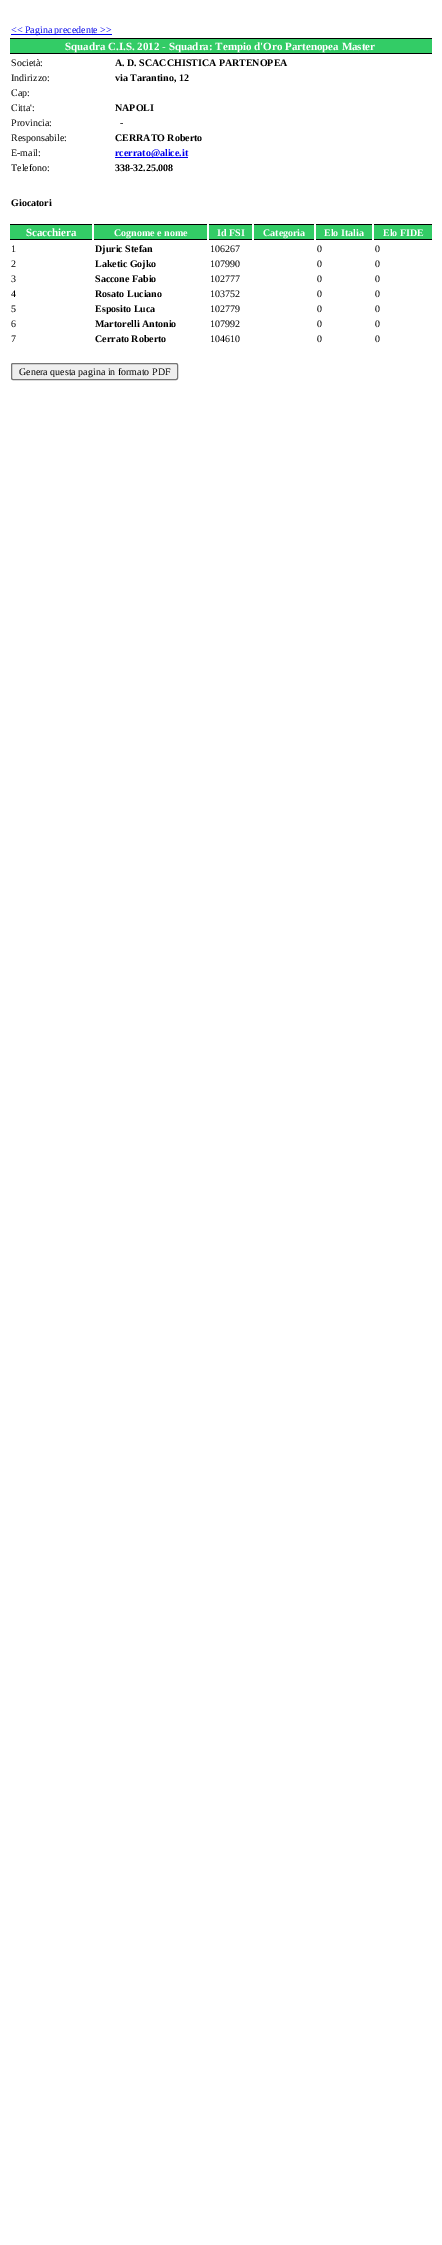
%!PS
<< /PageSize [442 2245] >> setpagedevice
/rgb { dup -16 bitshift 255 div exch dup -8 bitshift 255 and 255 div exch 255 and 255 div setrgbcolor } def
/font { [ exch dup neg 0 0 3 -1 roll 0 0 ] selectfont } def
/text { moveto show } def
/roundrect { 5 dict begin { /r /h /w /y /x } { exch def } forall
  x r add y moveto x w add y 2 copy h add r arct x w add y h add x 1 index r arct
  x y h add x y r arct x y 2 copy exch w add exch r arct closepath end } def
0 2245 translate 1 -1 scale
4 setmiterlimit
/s1 { /LiberationSerif-Regular 10 font 16#0000EE rgb } def
/s2 { /LiberationSerif-Bold 11 font 16#FFFFFF rgb } def
/s3 { /LiberationSerif-Regular 10 font 16#000000 rgb } def
/s4 { /LiberationSerif-Bold 10 font 16#000000 rgb } def
/s5 { /LiberationSerif-Bold 10 font 16#0000EE rgb } def
/s6 { /LiberationSerif-Bold 10 font 16#FFFFFF rgb } def
16#FFFFFF rgb
0 0 442 2245 rectfill
16#0000EE rgb
11 34 101 1 rectfill
s1
(<< Pagina precedente >>) 11 33 text
16#33CC66 rgb
10 39 422 14 rectfill
16#000000 rgb
10 38 422 1 rectfill
10 53 422 1 rectfill
s2
(Squadra C.I.S. 2012 - Squadra: Tempio d'Oro Partenopea Master) 65 50 text
s3
(Società:) 11 66 text
s4
(A. D. SCACCHISTICA PARTENOPEA) 115 66 text
s3
(Indirizzo:) 11 81 text
s4
(via Tarantino, 12) 115 81 text
s3
(Cap:) 11 96 text
(Citta':) 11 111 text
s4
(NAPOLI) 115 111 text
s3
(Provincia:) 11 126 text
s4
(-) 120 126 text
s3
(Responsabile:) 11 141 text
s4
(CERRATO Roberto) 115 141 text
s3
(E-mail:) 11 156 text
16#0000EE rgb
115 157 73 1 rectfill
s5
(rcerrato@alice.it) 115 156 text
s3
(Telefono:) 11 171 text
s4
(338-32.25.008) 115 171 text
(Giocatori) 11 206 text
16#33CC66 rgb
10 225 82 14 rectfill
16#000000 rgb
10 224 82 1 rectfill
10 239 82 1 rectfill
s2
(Scacchiera) 26 236 text
16#33CC66 rgb
94 225 113 14 rectfill
16#000000 rgb
94 224 113 1 rectfill
94 239 113 1 rectfill
s6
(Cognome e nome) 114 236 text
16#33CC66 rgb
209 225 43 14 rectfill
16#000000 rgb
209 224 43 1 rectfill
209 239 43 1 rectfill
s6
(Id FSI) 217 236 text
16#33CC66 rgb
254 225 60 14 rectfill
16#000000 rgb
254 224 60 1 rectfill
254 239 60 1 rectfill
s6
(Categoria) 263 236 text
16#33CC66 rgb
316 225 56 14 rectfill
16#000000 rgb
316 224 56 1 rectfill
316 239 56 1 rectfill
s6
(Elo Italia) 324 236 text
16#33CC66 rgb
374 225 58 14 rectfill
16#000000 rgb
374 224 58 1 rectfill
374 239 58 1 rectfill
s6
(Elo FIDE) 383 236 text
s3
(1) 11 252 text
s4
(Djuric Stefan) 95 252 text
s3
(106267) 210 252 text
(0) 317 252 text
(0) 375 252 text
(2) 11 267 text
s4
(Laketic Gojko) 95 267 text
s3
(107990) 210 267 text
(0) 317 267 text
(0) 375 267 text
(3) 11 282 text
s4
(Saccone Fabio) 95 282 text
s3
(102777) 210 282 text
(0) 317 282 text
(0) 375 282 text
(4) 11 297 text
s4
(Rosato Luciano) 95 297 text
s3
(103752) 210 297 text
(0) 317 297 text
(0) 375 297 text
(5) 11 312 text
s4
(Esposito Luca) 95 312 text
s3
(102779) 210 312 text
(0) 317 312 text
(0) 375 312 text
(6) 11 327 text
s4
(Martorelli Antonio) 95 327 text
s3
(107992) 210 327 text
(0) 317 327 text
(0) 375 327 text
(7) 11 342 text
s4
(Cerrato Roberto) 95 342 text
s3
(104610) 210 342 text
(0) 317 342 text
(0) 375 342 text
16#EFEFEF rgb
11.5 363.5 166 16 1.5 roundrect gsave fill grestore
16#767676 rgb
stroke
s3
(Genera questa pagina in formato PDF) 19 375 text
showpage
